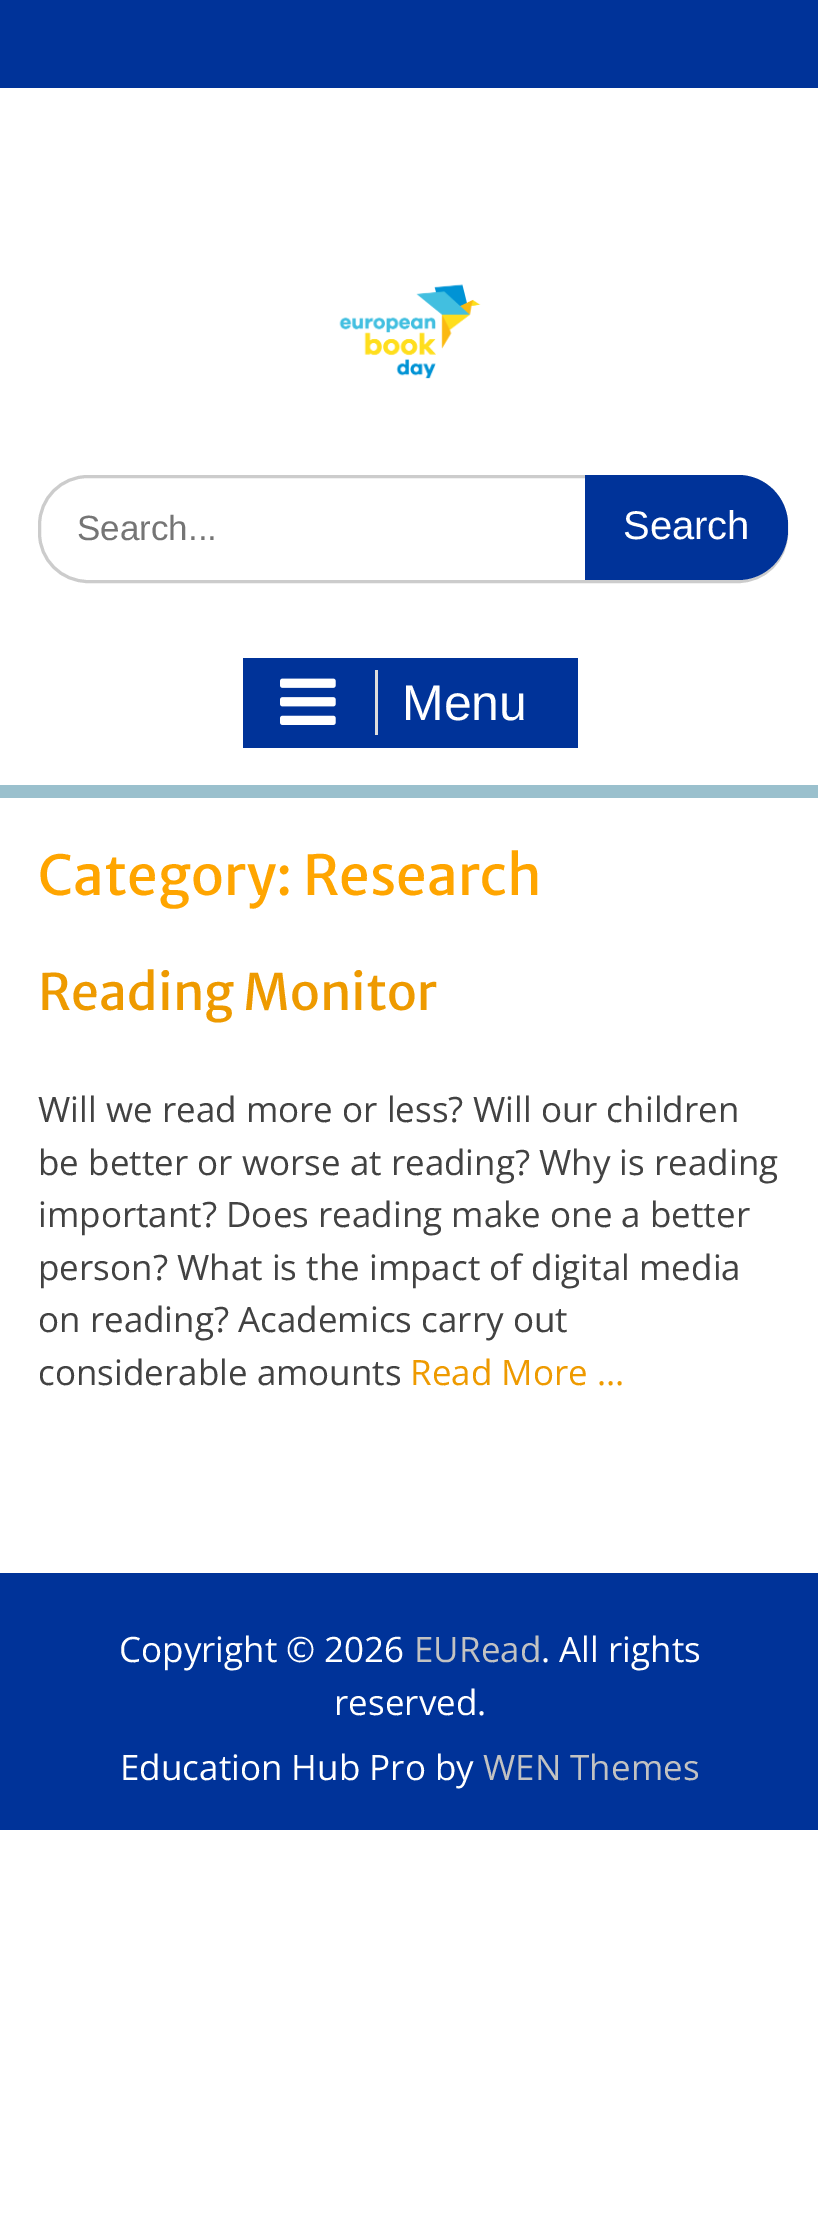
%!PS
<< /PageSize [818 2223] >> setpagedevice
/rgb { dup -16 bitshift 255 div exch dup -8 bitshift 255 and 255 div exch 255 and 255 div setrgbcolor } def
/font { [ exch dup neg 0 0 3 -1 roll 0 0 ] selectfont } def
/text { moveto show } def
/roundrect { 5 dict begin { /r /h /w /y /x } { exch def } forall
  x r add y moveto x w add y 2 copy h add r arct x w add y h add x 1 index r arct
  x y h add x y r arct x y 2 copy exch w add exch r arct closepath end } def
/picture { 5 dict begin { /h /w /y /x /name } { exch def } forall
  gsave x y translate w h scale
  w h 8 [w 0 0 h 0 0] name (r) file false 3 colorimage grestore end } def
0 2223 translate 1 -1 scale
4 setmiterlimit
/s1 { /LiberationSans-Regular 35 font 16#757575 rgb } def
/s2 { /LiberationSans-Regular 40 font 16#FFFFFF rgb } def
/s3 { /LiberationSans-Regular 50 font 16#FFFFFF rgb } def
/s4 { /MerriweatherSans-Regular 55 font 16#FFA500 rgb } def
/s5 { /MerriweatherSans-Regular 50 font 16#EE9A00 rgb } def
/s6 { /OpenSans-Regular 35 font 16#424242 rgb } def
/s7 { /OpenSans-Regular 35 font 16#EE9A00 rgb } def
/s8 { /OpenSans-Regular 35 font 16#FFFFFF rgb } def
/s9 { /OpenSans-Regular 35 font 16#C2C2C2 rgb } def
16#FFFFFF rgb
0 0 818 2223 rectfill
16#003399 rgb
0 0 818 88 rectfill
(pic1.raw) 339 284 142 95 picture
16#CCCCCC rgb
3 setlinewidth
39.5 476.5 747 105 48.5 roundrect stroke
s1
(Search...) 77 540 text
16#003399 rgb
585 475 moveto 738 475 lineto 765.5 475 788 497.5 788 525 curveto 788 530 lineto 788 557.5 765.5 580 738 580 curveto 585 580 lineto closepath fill
s2
(Search) 623 539 text
16#9AC0CD rgb
0 785 818 13 rectfill
16#003399 rgb
243 658 335 90 rectfill
16#DDDDDD rgb
375 670 3 65 rectfill
(pic2.raw) 280 678 56 47 picture
s3
(Menu) 402 720 text
s4
(Category: Research) 38 895 text
s5
(Reading Monitor) 38 1010 text
s6
(Will we read more or less? Will our children) 38 1122 text
(be better or worse at reading? Why is reading) 38 1175 text
(important? Does reading make one a better) 38 1227 text
(person? What is the impact of digital media) 38 1280 text
(on reading? Academics carry out) 38 1332 text
(considerable amounts) 38 1385 text
s7
(Read More …) 410 1385 text
16#003399 rgb
0 1573 818 257 rectfill
s8
(Copyright © 2026) 119 1662 text
s9
(EURead) 414 1662 text
s8
(. All rights) 541 1662 text
(reserved.) 334 1715 text
(Education Hub Pro by) 120 1780 text
s9
(WEN Themes) 483 1780 text
showpage
